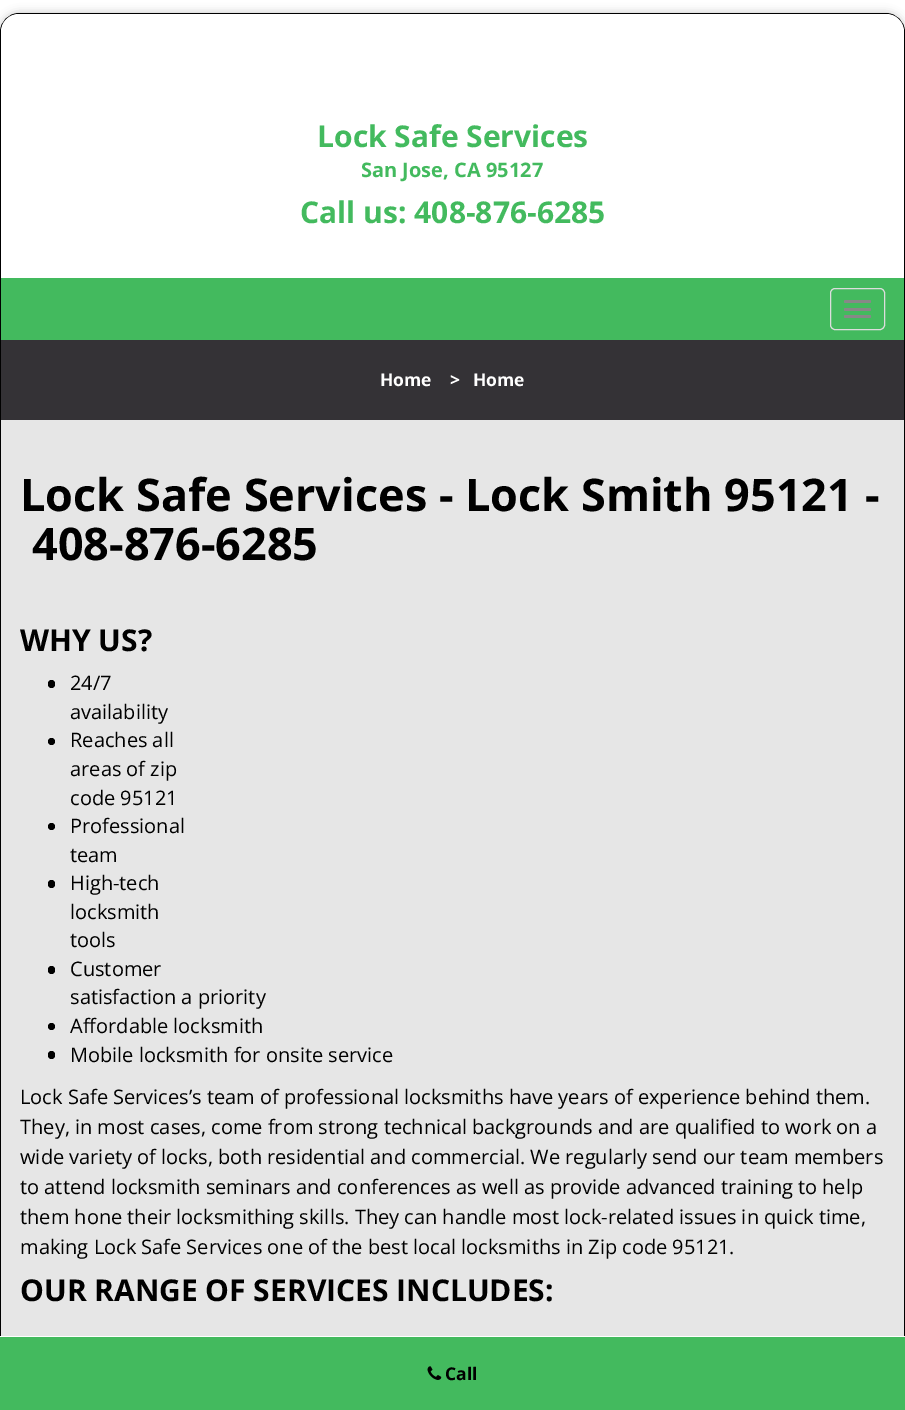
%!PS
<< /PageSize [905 1410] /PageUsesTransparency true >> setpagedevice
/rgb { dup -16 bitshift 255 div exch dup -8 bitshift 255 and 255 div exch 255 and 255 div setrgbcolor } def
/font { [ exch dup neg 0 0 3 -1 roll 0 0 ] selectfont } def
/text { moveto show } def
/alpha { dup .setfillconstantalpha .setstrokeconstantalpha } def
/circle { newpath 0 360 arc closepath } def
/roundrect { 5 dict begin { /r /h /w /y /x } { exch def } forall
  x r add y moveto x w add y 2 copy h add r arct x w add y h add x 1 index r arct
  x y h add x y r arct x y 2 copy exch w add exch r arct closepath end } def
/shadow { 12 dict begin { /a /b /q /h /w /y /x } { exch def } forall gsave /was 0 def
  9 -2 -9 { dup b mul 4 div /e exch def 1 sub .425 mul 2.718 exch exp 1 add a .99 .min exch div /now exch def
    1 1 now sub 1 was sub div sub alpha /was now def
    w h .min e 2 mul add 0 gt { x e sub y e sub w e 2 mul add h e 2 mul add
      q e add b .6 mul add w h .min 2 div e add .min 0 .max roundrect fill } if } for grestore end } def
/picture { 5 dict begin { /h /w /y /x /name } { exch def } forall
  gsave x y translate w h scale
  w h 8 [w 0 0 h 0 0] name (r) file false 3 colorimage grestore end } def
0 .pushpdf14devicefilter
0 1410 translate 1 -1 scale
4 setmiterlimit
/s1 { /OpenSans-Bold 30 font 16#43BA5E rgb } def
/s2 { /OpenSans-Bold 20 font 16#43BA5E rgb } def
/s3 { /OpenSans-Bold 17.5 font 16#FFFFFF rgb } def
/s4 { /OpenSans-Bold 45 font 16#000000 rgb } def
/s5 { /OpenSans-Bold 30 font 16#000000 rgb } def
/s6 { /OpenSans-Regular 20 font 16#000000 rgb } def
/s7 { /OpenSans-Bold 17.5 font 16#000000 rgb } def
16#FFFFFF rgb
0 0 905 1410 rectfill
gsave
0 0 moveto 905 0 lineto 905 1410 lineto 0 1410 lineto closepath 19 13 moveto 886 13 lineto 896.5 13 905 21.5 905 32 curveto 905 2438 lineto 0 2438 lineto 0 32 lineto 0 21.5 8.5 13 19 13 curveto closepath eoclip newpath
16#BFBFBF rgb
0 13 905 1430 19 4.5 1 shadow
grestore
16#000000 rgb
19 13.5 moveto 886 13.5 lineto 896 13.5 904.5 22 904.5 32 curveto 904.5 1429.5 lineto 0.5 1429.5 lineto 0.5 32 lineto 0.5 22 9 13.5 19 13.5 curveto closepath stroke
16#FFFFFF rgb
19 14 moveto 886 14 lineto 896 14 904 22 904 32 curveto 904 278 lineto 1 278 lineto 1 32 lineto 1 22 9 14 19 14 curveto closepath fill
s1
(Lock Safe Services) 317 147 text
s2
(San Jose, CA 95127) 361 177 text
s1
(Call us: 408-876-6285) 300 223 text
1 278 903 62 rectfill
16#DDDDDD rgb
830.5 288.5 54 41 4.5 roundrect stroke
16#888888 rgb
844 300 27 3 1.5 roundrect fill
844 308 27 3 1.5 roundrect fill
844 315 27 3 1.5 roundrect fill
16#343236 rgb
1 340 903 80 rectfill
s3
(Home) 380 386 text
(>) 450 386 text
(Home) 473 386 text
16#E6E6E6 rgb
1 420 903 916 rectfill
s4
(Lock Safe Services - Lock Smith 95121 -) 20 511 text
(408-876-6285) 32 560 text
s5
(WHY US?) 20 651 text
48 680 7 8 3.5 roundrect fill
s6
(24/7) 70 690 text
(availability) 70 719 text
51.5 741.5 3.5 circle fill
(Reaches all) 70 747 text
(areas of zip) 70 776 text
(code 95121) 70 805 text
51.5 826.5 3.5 circle fill
(Professional) 70 833 text
(team) 70 862 text
48 880 7 8 3.5 roundrect fill
(High-tech) 70 890 text
(locksmith) 70 919 text
(tools) 70 947 text
48 966 7 8 3.5 roundrect fill
(Customer) 70 976 text
(satisfaction a priority) 70 1004 text
51.5 1026.5 3.5 circle fill
(Affordable locksmith) 70 1033 text
48 1051 7 8 3.5 roundrect fill
(Mobile locksmith for onsite service) 70 1062 text
(Lock Safe Services’s team of professional locksmiths have years of experience behind them.) 20 1104 text
(They, in most cases, come from strong technical backgrounds and are qualified to work on a) 20 1134 text
(wide variety of locks, both residential and commercial. We regularly send our team members) 20 1164 text
(to attend locksmith seminars and conferences as well as provide advanced training to help) 20 1194 text
(them hone their locksmithing skills. They can handle most lock-related issues in quick time,) 20 1224 text
(making Lock Safe Services one of the best local locksmiths in Zip code 95121.) 20 1254 text
s5
(OUR RANGE OF SERVICES INCLUDES:) 20 1301 text
16#43BA5E rgb
0 1337 905 73 rectfill
16#FFFFFF rgb
0 1336 905 1 rectfill
(pic1.raw) 427 1366 15 14 picture
s7
(Call) 445 1380 text
.poppdf14devicefilter showpage
